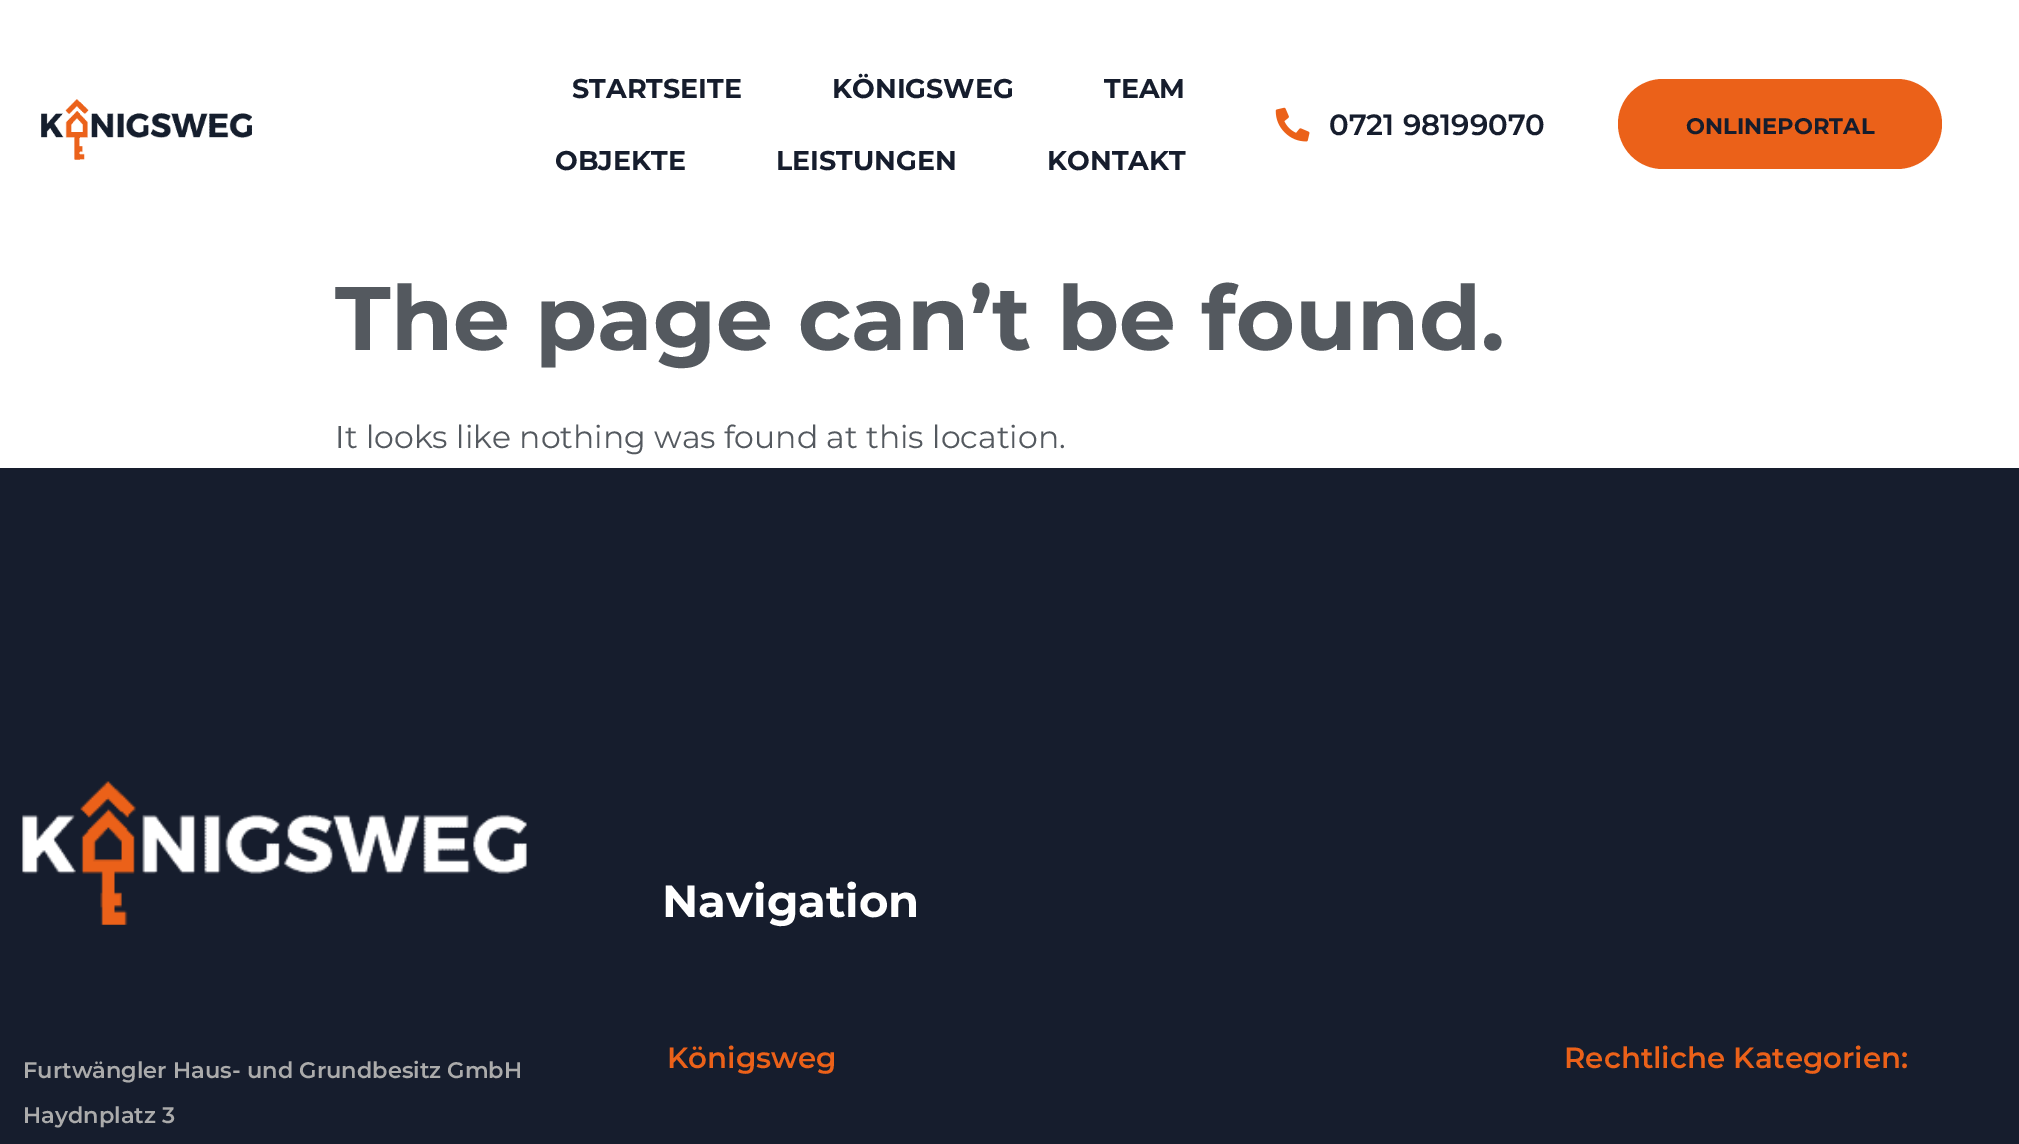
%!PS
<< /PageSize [2019 1144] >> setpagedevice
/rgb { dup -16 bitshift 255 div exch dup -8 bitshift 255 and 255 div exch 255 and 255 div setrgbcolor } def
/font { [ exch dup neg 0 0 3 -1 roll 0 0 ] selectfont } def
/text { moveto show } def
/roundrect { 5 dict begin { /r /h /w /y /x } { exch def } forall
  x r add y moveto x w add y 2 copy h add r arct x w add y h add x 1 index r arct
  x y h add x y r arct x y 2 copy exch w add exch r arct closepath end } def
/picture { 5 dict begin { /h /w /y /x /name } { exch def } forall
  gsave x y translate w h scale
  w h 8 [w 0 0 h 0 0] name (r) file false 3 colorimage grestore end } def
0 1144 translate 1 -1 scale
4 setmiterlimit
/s1 { /Montserrat-Bold 27 font 16#161D2D rgb } def
/s2 { /Montserrat-SemiBold 29.25 font 16#161D2D rgb } def
/s3 { /Montserrat-Bold 22.5 font 16#161D2D rgb } def
/s4 { /Montserrat-Bold 90 font 16#54595F rgb } def
/s5 { /Montserrat-Regular 31.5 font 16#54595F rgb } def
/s6 { /Montserrat-Bold 45 font 16#FFFFFF rgb } def
/s7 { /Montserrat-SemiBold 29.25 font 16#EB6119 rgb } def
/s8 { /Montserrat-SemiBold 22.5 font 16#ABABAB rgb } def
16#FFFFFF rgb
0 0 2019 1144 rectfill
(pic1.raw) 41 99 211 61 picture
s1
(STARTSEITE) 572 98 text
(KÖNIGSWEG) 832 98 text
(TEAM) 1104 98 text
(OBJEKTE) 555 170 text
(LEISTUNGEN) 776 170 text
(KONTAKT) 1047 170 text
(pic2.raw) 1275 107 35 35 picture
s2
(0721 98199070) 1329 135 text
16#EB6119 rgb
1618 79 324 90 45 roundrect fill
s3
(ONLINEPORTAL) 1686 134 text
s4
(The page can’t be found.) 335 350 text
s5
(It looks like nothing was found at this location.) 335 448 text
16#161D2D rgb
0 468 2019 676 rectfill
s6
(Navigation) 662 917 text
s7
(Königsweg) 667 1068 text
(Rechtliche Kategorien:) 1564 1068 text
(pic3.raw) 22 781 505 144 picture
s8
(Furtwängler Haus- und Grundbesitz GmbH) 23 1078 text
(Haydnplatz 3) 23 1123 text
showpage
